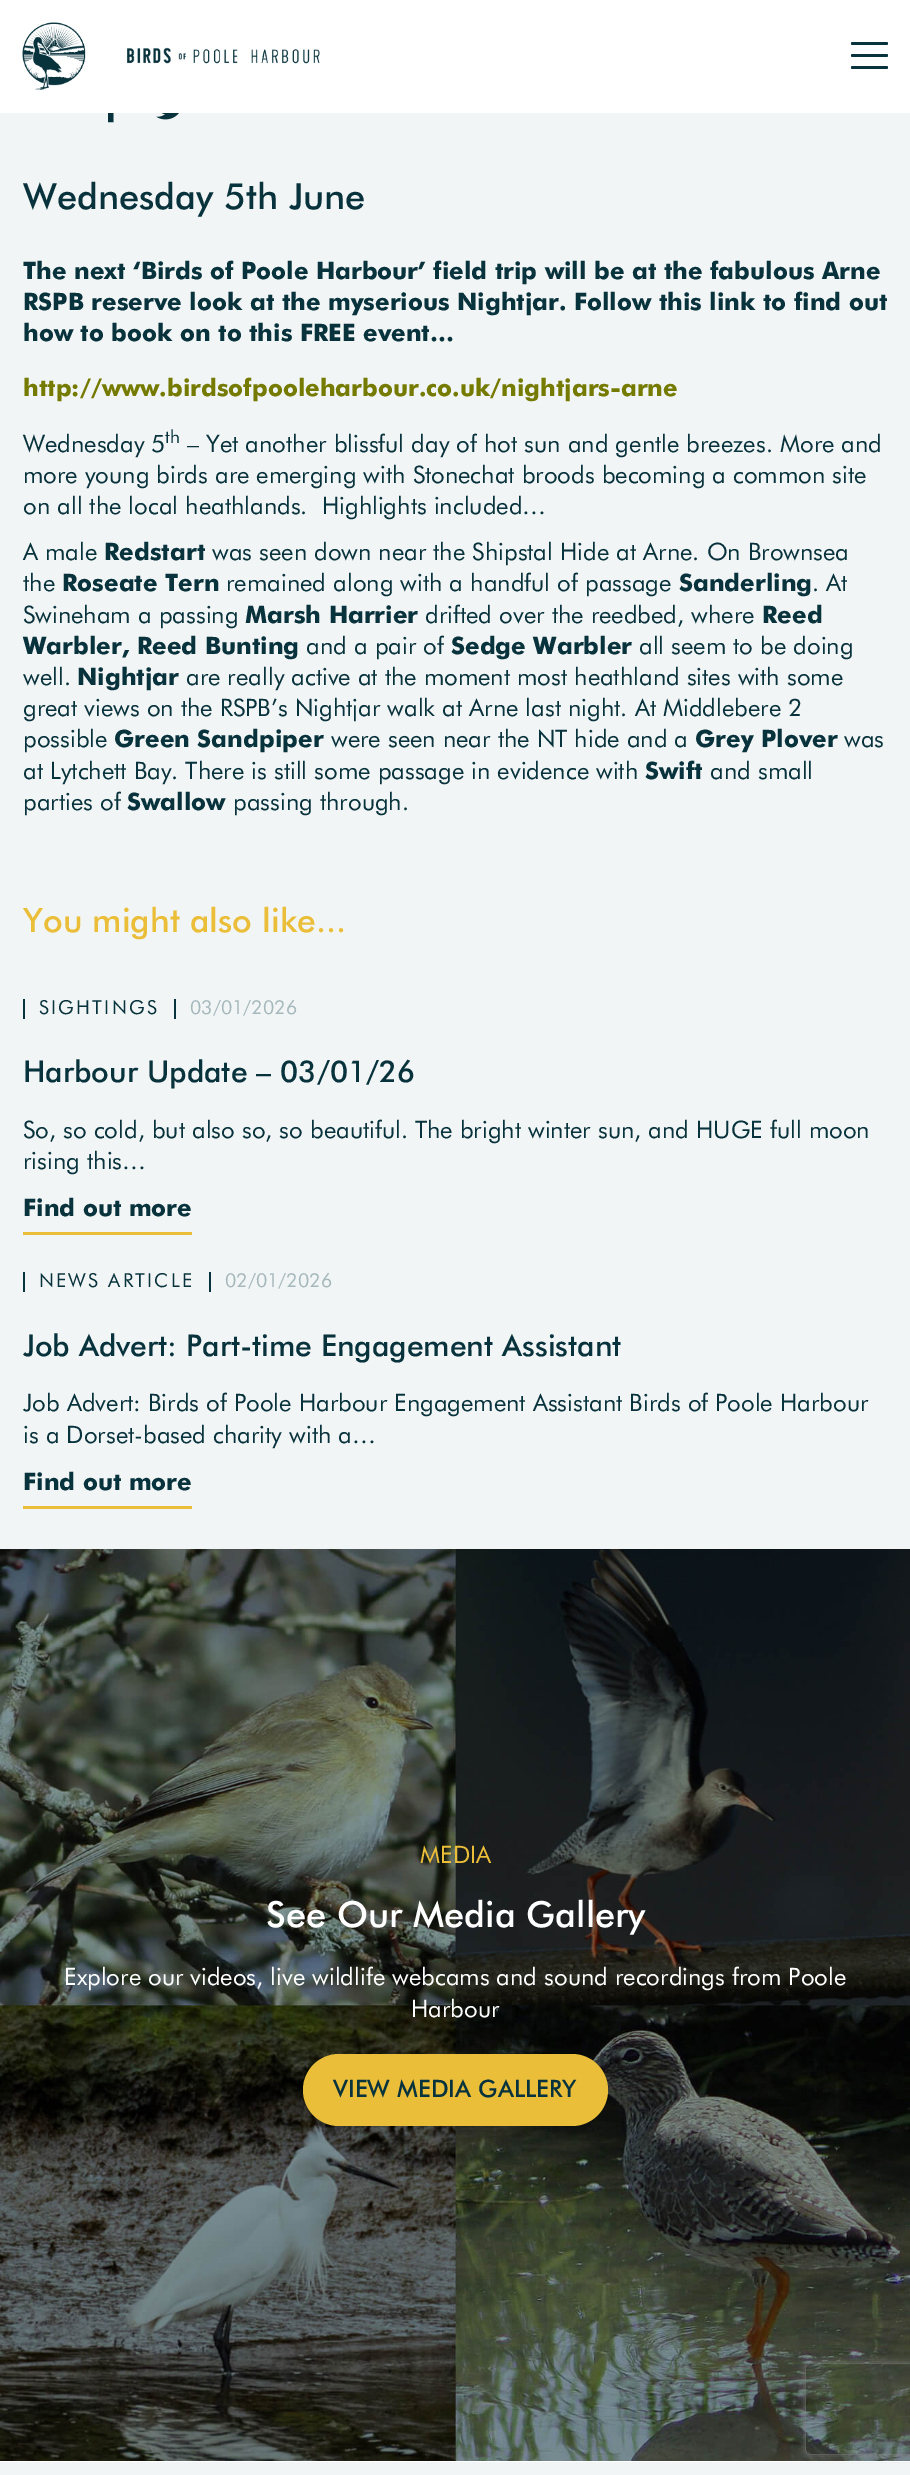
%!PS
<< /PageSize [910 2475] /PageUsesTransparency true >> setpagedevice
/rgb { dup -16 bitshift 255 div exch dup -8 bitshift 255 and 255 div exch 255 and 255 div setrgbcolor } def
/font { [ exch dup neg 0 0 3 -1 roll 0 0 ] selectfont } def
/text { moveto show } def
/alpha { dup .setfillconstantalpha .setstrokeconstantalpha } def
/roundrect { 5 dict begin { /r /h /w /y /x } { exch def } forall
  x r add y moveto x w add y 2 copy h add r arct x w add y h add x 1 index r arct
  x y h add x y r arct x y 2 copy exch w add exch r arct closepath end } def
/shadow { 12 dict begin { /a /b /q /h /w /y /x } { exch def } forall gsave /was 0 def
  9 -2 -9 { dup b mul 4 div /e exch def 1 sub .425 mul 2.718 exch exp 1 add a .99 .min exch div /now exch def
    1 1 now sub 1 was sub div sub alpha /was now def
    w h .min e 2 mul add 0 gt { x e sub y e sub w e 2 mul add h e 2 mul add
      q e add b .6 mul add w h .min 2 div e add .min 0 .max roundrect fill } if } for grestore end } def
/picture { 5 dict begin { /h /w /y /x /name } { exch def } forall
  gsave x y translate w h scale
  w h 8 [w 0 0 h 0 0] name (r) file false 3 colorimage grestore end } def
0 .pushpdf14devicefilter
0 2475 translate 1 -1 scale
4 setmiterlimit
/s1 { /Futura-Medium 36 font 16#08323C rgb } def
/s2 { /Futura-Bold 24 font 16#08323C rgb } def
/s3 { /Futura-Bold 24 font 16#757A00 rgb } def
/s4 { /Futura-Regular 24 font 16#08323C rgb } def
/s5 { /Futura-Regular 18 font 16#08323C rgb } def
/s6 { /Futura-Medium 33.5 font 16#EABE38 rgb } def
/s7 { /Futura-Regular 19.25 font 16#A5B8BC rgb } def
/s8 { /Futura-Medium 30 font 16#08323C rgb } def
/s9 { /Futura-Regular 24 font 16#EABE38 rgb } def
/s10 { /Futura-Medium 36 font 16#FFFFFF rgb } def
/s11 { /Futura-Regular 24 font 16#FFFFFF rgb } def
/s12 { /Futura-Medium 24 font 16#08323C rgb } def
16#FFFFFF rgb
0 0 910 2475 rectfill
(pic1.raw) 22 22 298 68 picture
16#08323C rgb
851 42 37 3 1.5 roundrect fill
851 54 37 3 1.5 roundrect fill
851 66 37 3 1.5 roundrect fill
16#F2F5F5 rgb
0 113 910 1436 rectfill
(pic2.raw) 108 113 6 10 picture
(pic3.raw) 156 113 23 7 picture
s1
(Wednesday 5th June) 23 209 text
s2
(The next ‘Birds of Poole Harbour’ field trip will be at the fabulous Arne) 23 279 text
(RSPB reserve look at the myserious Nightjar. Follow this link to find out) 23 310 text
(how to book on to this FREE event…) 23 341 text
s3
(http://www.birdsofpooleharbour.co.uk/nightjars-arne) 23 396 text
s4
(Wednesday 5) 23 452 text
s5
(th) 165 443 text
s4
(– Yet another blissful day of hot sun and gentle breezes. More and) 187 452 text
(more young birds are emerging with Stonechat broods becoming a common site) 23 483 text
(on all the local heathlands.  Highlights included…) 23 514 text
(A male) 23 560 text
s2
(Redstart) 104 560 text
s4
(was seen down near the Shipstal Hide at Arne. On Brownsea) 212 560 text
(the) 23 591 text
s2
(Roseate Tern) 62 591 text
s4
(remained along with a handful of passage) 226 591 text
s2
(Sanderling) 679 591 text
s4
(. At) 812 591 text
(Swineham a passing) 23 623 text
s2
(Marsh Harrier) 245 623 text
s4
(drifted over the reedbed, where) 425 623 text
s2
(Reed) 762 623 text
(Warbler, Reed Bunting) 23 654 text
s4
(and a pair of) 306 654 text
s2
(Sedge Warbler) 451 654 text
s4
(all seem to be doing) 639 654 text
(well.) 23 685 text
s2
(Nightjar) 77 685 text
s4
(are really active at the moment most heathland sites with some) 186 685 text
(great views on the RSPB’s Nightjar walk at Arne last night. At Middlebere 2) 23 716 text
(possible) 23 747 text
s2
(Green Sandpiper) 114 747 text
s4
(were seen near the NT hide and a) 331 747 text
s2
(Grey Plover) 695 747 text
s4
(was) 844 747 text
(at Lytchett Bay. There is still some passage in evidence with) 23 779 text
s2
(Swift) 645 779 text
s4
(and small) 710 779 text
(parties of) 23 810 text
s2
(Swallow) 127 810 text
s4
(passing through.) 233 810 text
s6
(You might also like...) 23 932 text
/Futura-Regular 19.25 font
16#08323C rgb
39 1014 moveto 2.25 0 (SIGHTINGS) ashow
174 999 2 20 rectfill
23 999 2 20 rectfill
s7
(03/01/2026) 190 1014 text
s8
(Harbour Update – 03/01/26) 23 1082 text
s4
(So, so cold, but also so, so beautiful. The bright winter sun, and HUGE full moon) 23 1138 text
(rising this…) 23 1169 text
16#EABE38 rgb
23 1232 169 3 rectfill
s2
(Find out more) 23 1216 text
/Futura-Regular 19.25 font
39 1287 moveto 2.25 0 (NEWS ARTICLE) ashow
209 1272 2 20 rectfill
23 1272 2 20 rectfill
s7
(02/01/2026) 225 1287 text
s8
(Job Advert: Part-time Engagement Assistant) 23 1356 text
s4
(Job Advert: Birds of Poole Harbour Engagement Assistant Birds of Poole Harbour) 23 1411 text
(is a Dorset-based charity with a…) 23 1443 text
16#EABE38 rgb
23 1506 169 3 rectfill
s2
(Find out more) 23 1490 text
(pic4.raw) 0 1549 910 912 picture
s9
(MEDIA) 420 1863 text
s10
(See Our Media Gallery) 266 1927 text
s11
(Explore our videos, live wildlife webcams and sound recordings from Poole) 64 1985 text
(Harbour) 411 2017 text
16#EABE38 rgb
303 2054 305 72 36 roundrect fill
s12
(VIEW MEDIA GALLERY) 333 2097 text
16#F2F5F5 rgb
0 2462 910 13 rectfill
gsave
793 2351 moveto 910 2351 lineto 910 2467 lineto 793 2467 lineto closepath 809 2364 moveto 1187 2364 lineto 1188.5 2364 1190 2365.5 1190 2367 curveto 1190 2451 lineto 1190 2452.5 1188.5 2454 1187 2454 curveto 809 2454 lineto 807.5 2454 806 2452.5 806 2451 curveto 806 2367 lineto 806 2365.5 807.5 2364 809 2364 curveto closepath eoclip newpath
16#808080 rgb
806 2364 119 90 3 4 1 shadow
grestore
.poppdf14devicefilter showpage
